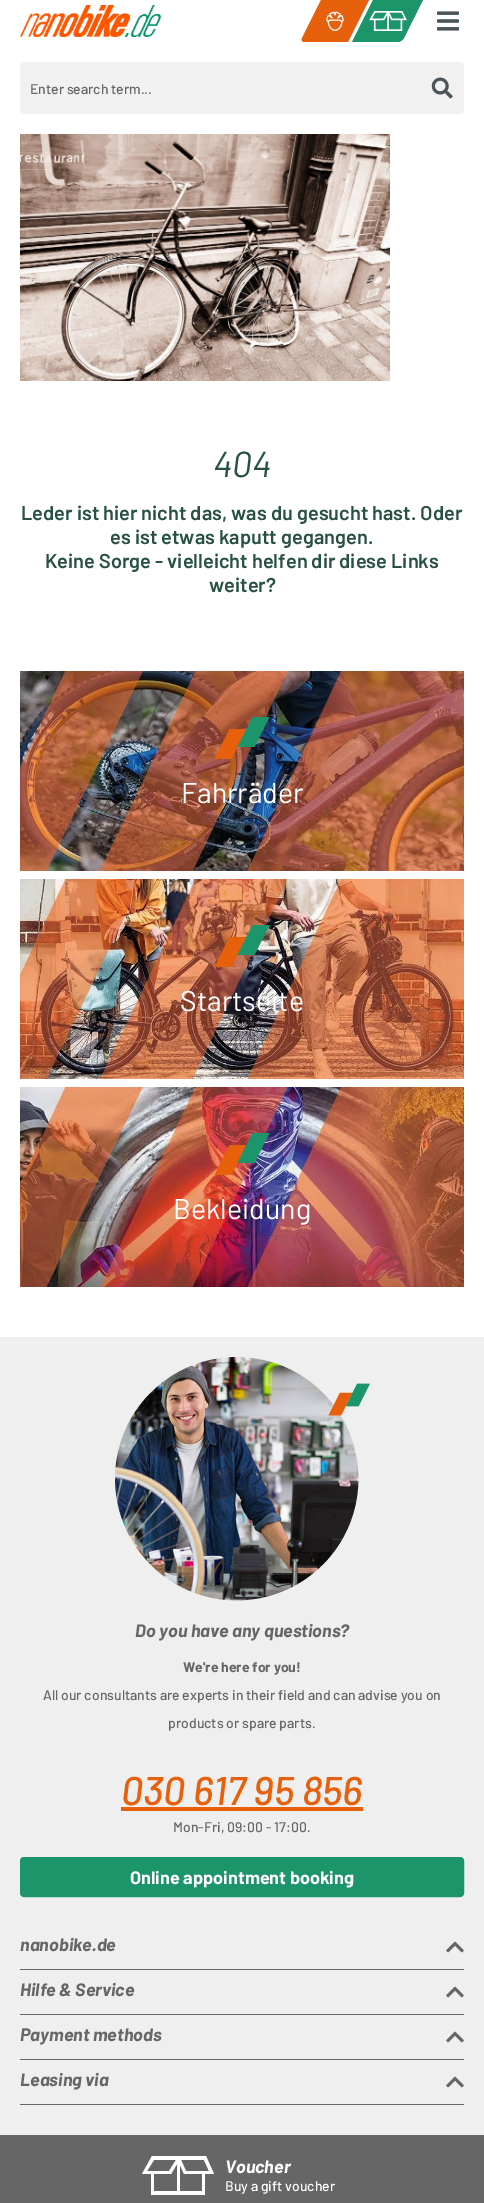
%!PS
<< /PageSize [484 2203] >> setpagedevice
/rgb { dup -16 bitshift 255 div exch dup -8 bitshift 255 and 255 div exch 255 and 255 div setrgbcolor } def
/font { [ exch dup neg 0 0 3 -1 roll 0 0 ] selectfont } def
/text { moveto show } def
/roundrect { 5 dict begin { /r /h /w /y /x } { exch def } forall
  x r add y moveto x w add y 2 copy h add r arct x w add y h add x 1 index r arct
  x y h add x y r arct x y 2 copy exch w add exch r arct closepath end } def
/picture { 5 dict begin { /h /w /y /x /name } { exch def } forall
  gsave x y translate w h scale
  w h 8 [w 0 0 h 0 0] name (r) file false 3 colorimage grestore end } def
0 2203 translate 1 -1 scale
4 setmiterlimit
/s1 { /Barlow-Medium 14 font 16#666666 rgb } def
/s2 { /Barlow-Italic 36 font 16#285142 rgb } def
/s3 { /Barlow-SemiBold 20 font 16#285142 rgb } def
/s4 { /Barlow-Regular 28.5 font 16#FFFFFF rgb } def
/s5 { /Barlow-BoldItalic 18 font 16#666666 rgb } def
/s6 { /Barlow-Bold 14 font 16#666666 rgb } def
/s7 { /Barlow-MediumItalic 40 font 16#E7600C rgb } def
/s8 { /Barlow-Bold 18 font 16#FFFFFF rgb } def
/s9 { /Barlow-BoldItalic 18 font 16#FFFFFF rgb } def
/s10 { /Barlow-Medium 14 font 16#FFFFFF rgb } def
16#FFFFFF rgb
0 0 484 2203 rectfill
(pic1.raw) 20 5 141 32 picture
16#E7600C rgb
321 0 moveto 369 0 lineto 348 42 lineto 304 42 lineto 302 42 301 40 302 38 curveto closepath fill
(pic2.raw) 326 11 18 20 picture
16#1B9569 rgb
373 0 moveto 423 0 lineto 404 38 lineto 403 40 400 42 398 42 curveto 352 42 lineto closepath fill
(pic3.raw) 369 11 38 20 picture
(pic4.raw) 437 11 22 20 picture
16#F1F1F1 rgb
24 63 moveto 422 63 lineto 422 113 lineto 24 113 lineto 22.5 113 21 111.5 21 110 curveto 21 66 lineto 21 64.5 22.5 63 24 63 curveto closepath fill
24 62 moveto 422 62 lineto 422 114 lineto 24 114 lineto 22 114 20 112 20 110 curveto 20 66 lineto 20 64 22 62 24 62 curveto closepath 24 63 moveto 422 63 lineto 422 113 lineto 24 113 lineto 22 113 21 112 21 110 curveto 21 66 lineto 21 64 22 63 24 63 curveto closepath eofill
s1
(Enter search term...) 30 94 text
16#F1F1F1 rgb
421 62 moveto 460 62 lineto 462 62 464 64 464 66 curveto 464 110 lineto 464 112 462 114 460 114 curveto 421 114 lineto closepath fill
421 62 moveto 460 62 lineto 462 62 464 64 464 66 curveto 464 110 lineto 464 112 462 114 460 114 curveto 421 114 lineto closepath 421 63 moveto 460 63 lineto 462 63 463 64 463 66 curveto 463 110 lineto 463 112 462 113 460 113 curveto 421 113 lineto closepath eofill
(pic5.raw) 431 77 22 22 picture
(pic6.raw) 20 134 370 247 picture
s2
(404) 213 477 text
s3
(Leder ist hier nicht das, was du gesucht hast. Oder) 21 520 text
(es ist etwas kaputt gegangen.) 110 544 text
(Keine Sorge - vielleicht helfen dir diese Links) 45 568 text
(weiter?) 209 592 text
(pic7.raw) 20 671 444 200 picture
16#E7600C rgb
231.5 759 moveto 246.5 729 lineto 229.5 729 lineto 214.5 759 lineto closepath fill
16#1B9569 rgb
254.5 747 moveto 269.5 717 lineto 252.5 717 lineto 237.5 747 lineto closepath fill
s4
(Fahrräder) 181 803 text
(pic8.raw) 20 879 444 200 picture
16#E7600C rgb
231.5 967 moveto 246.5 937 lineto 229.5 937 lineto 214.5 967 lineto closepath fill
16#1B9569 rgb
254.5 955 moveto 269.5 925 lineto 252.5 925 lineto 237.5 955 lineto closepath fill
s4
(Startseite) 180 1011 text
(pic9.raw) 20 1087 444 200 picture
16#E7600C rgb
231.5 1175 moveto 246.5 1145 lineto 229.5 1145 lineto 214.5 1175 lineto closepath fill
16#1B9569 rgb
254.5 1163 moveto 269.5 1133 lineto 252.5 1133 lineto 237.5 1163 lineto closepath fill
s4
(Bekleidung) 173 1219 text
16#EFEFEF rgb
0 1337 484 798 rectfill
(pic10.raw) 115 1357 255 244 picture
s5
(Do you have any questions?) 135 1637 text
s6
(We're here for you!) 183 1672 text
s1
(All our consultants are experts in their field and can advise you on) 43 1700 text
(products or spare parts.) 168 1728 text
s7
(030 617 95 856) 121 1805 text
121 1807 242 4 rectfill
s1
(Mon-Fri, 09:00 - 17:00.) 173 1832 text
16#1B9569 rgb
20.5 1857.5 443 39 3.5 roundrect gsave fill grestore
stroke
s8
(Online appointment booking) 130 1884 text
16#666666 rgb
20 1969 444 1 rectfill
s5
(nanobike.de) 20 1951 text
(pic11.raw) 446 1941 18 12 picture
20 2014 444 1 rectfill
(Hilfe & Service) 20 1996 text
(pic11.raw) 446 1986 18 12 picture
20 2059 444 1 rectfill
(Payment methods) 20 2041 text
(pic11.raw) 446 2031 18 12 picture
20 2104 444 1 rectfill
(Leasing via) 20 2086 text
(pic11.raw) 446 2076 18 12 picture
0 2135 484 68 rectfill
16#FFFFFF rgb
214 2174 moveto 206 2156 lineto 152 2156 lineto 142 2174 lineto 151 2174 lineto 151 2195 lineto 205 2195 lineto 205 2174 lineto closepath 204 2160 moveto 209 2171 lineto 186 2171 lineto 181 2160 lineto closepath 154 2160 moveto 176 2160 lineto 169 2171 lineto 147 2171 lineto closepath 154 2191 moveto 154 2174 lineto 171 2174 lineto 177 2164 lineto 177 2191 lineto closepath 202 2191 moveto 180 2191 lineto 180 2165 lineto 184 2174 lineto 202 2174 lineto closepath fill
(Voucher) 225 2173 text
s10
(Buy a gift voucher) 225 2191 text
showpage
